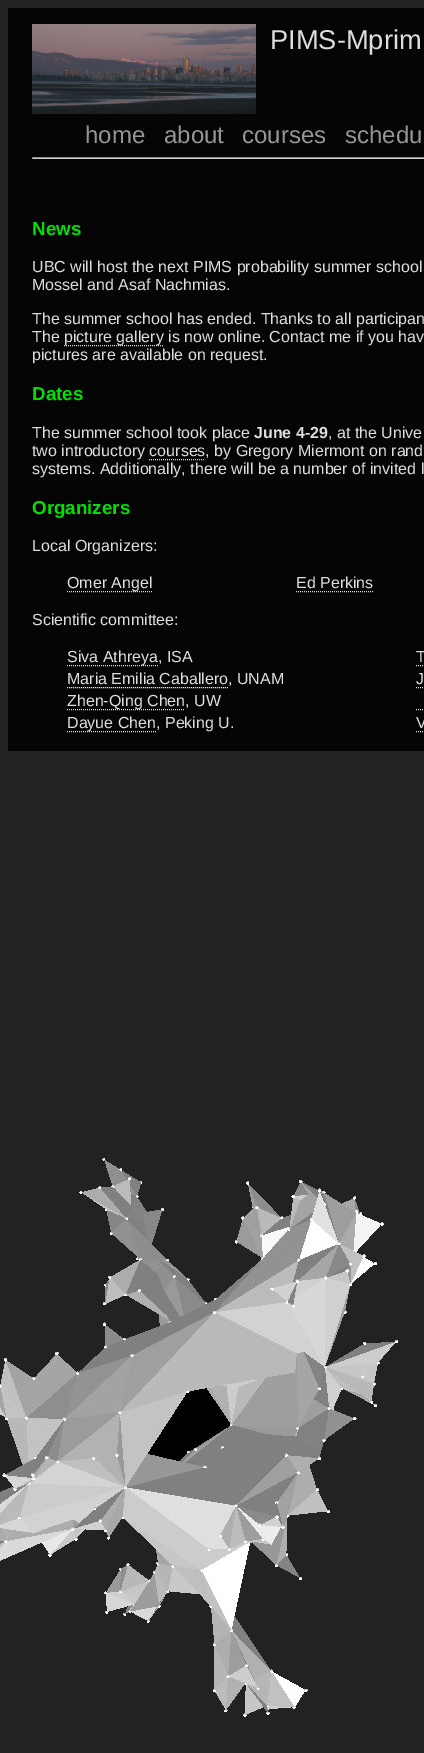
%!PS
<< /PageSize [424 1753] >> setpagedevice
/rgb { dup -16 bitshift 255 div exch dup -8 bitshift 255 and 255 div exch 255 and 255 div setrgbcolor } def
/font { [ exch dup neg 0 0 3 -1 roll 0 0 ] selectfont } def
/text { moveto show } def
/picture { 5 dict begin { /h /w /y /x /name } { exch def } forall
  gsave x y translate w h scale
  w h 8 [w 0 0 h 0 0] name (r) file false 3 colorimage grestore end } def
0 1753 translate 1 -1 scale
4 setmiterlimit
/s1 { /LiberationSans-Regular 27.25 font 16#DEDEDE rgb } def
/s2 { /LiberationSans-Regular 24 font 16#969696 rgb } def
/s3 { /LiberationSans-Bold 18.75 font 16#05DE05 rgb } def
/s4 { /LiberationSans-Regular 16 font 16#DEDEDE rgb } def
/s5 { /LiberationSans-Bold 16 font 16#DEDEDE rgb } def
16#222222 rgb
0 0 424 1753 rectfill
(pic1.raw) 0 1153 399 568 picture
16#050505 rgb
8 8 416 743 rectfill
(pic2.raw) 32 24 224 90 picture
s1
(PIMS-Mprim) 270 49 text
s2
(home) 85 143 text
(about) 164 143 text
(courses) 242 143 text
(schedu) 345 143 text
16#8C8C8C rgb
32 157 392 1 rectfill
16#CFCFCF rgb
32 158 392 1 rectfill
16#8C8C8C rgb
32 157 1 2 rectfill
s3
(News) 32 235 text
s4
(UBC will host the next PIMS probability summer school) 32 272 text
(Mossel and Asaf Nachmias.) 32 290 text
(The summer school has ended. Thanks to all participan) 32 324 text
(The) 32 342 text
[1 1] 0 setdash
64 345.5 moveto 164 345.5 lineto stroke
(picture gallery is now online. Contact me if you hav) 64 342 text
(pictures are available on request.) 32 360 text
s3
(Dates) 32 400 text
s4
(The summer school took place) 32 438 text
s5
(June 4-29) 254 438 text
s4
(, at the Unive) 328 438 text
(two introductory courses, by Gregory Miermont on rand) 32 456 text
149 459.5 moveto 205 459.5 lineto stroke
(systems. Additionally, there will be a number of invited l) 32 474 text
s3
(Organizers) 32 514 text
s4
(Local Organizers:) 32 551 text
67 591.5 moveto 152 591.5 lineto stroke
(Omer Angel) 67 588 text
(Ed Perkins) 296 588 text
296 591.5 moveto 374 591.5 lineto stroke
(Scientific committee:) 32 625 text
67 665.5 moveto 158 665.5 lineto stroke
(Siva Athreya, ISA) 67 662 text
(T) 416 662 text
416 665.5 moveto 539 665.5 lineto stroke
(Maria Emilia Caballero, UNAM) 67 684 text
67 687.5 moveto 228 687.5 lineto stroke
(J) 416 684 text
416 687.5 moveto 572 687.5 lineto stroke
67 709.5 moveto 185 709.5 lineto stroke
(Zhen-Qing Chen, UW) 67 706 text
416 709.5 moveto 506 709.5 lineto stroke
67 731.5 moveto 156 731.5 lineto stroke
(Dayue Chen, Peking U.) 67 728 text
(V) 416 728 text
416 731.5 moveto 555 731.5 lineto stroke
showpage
